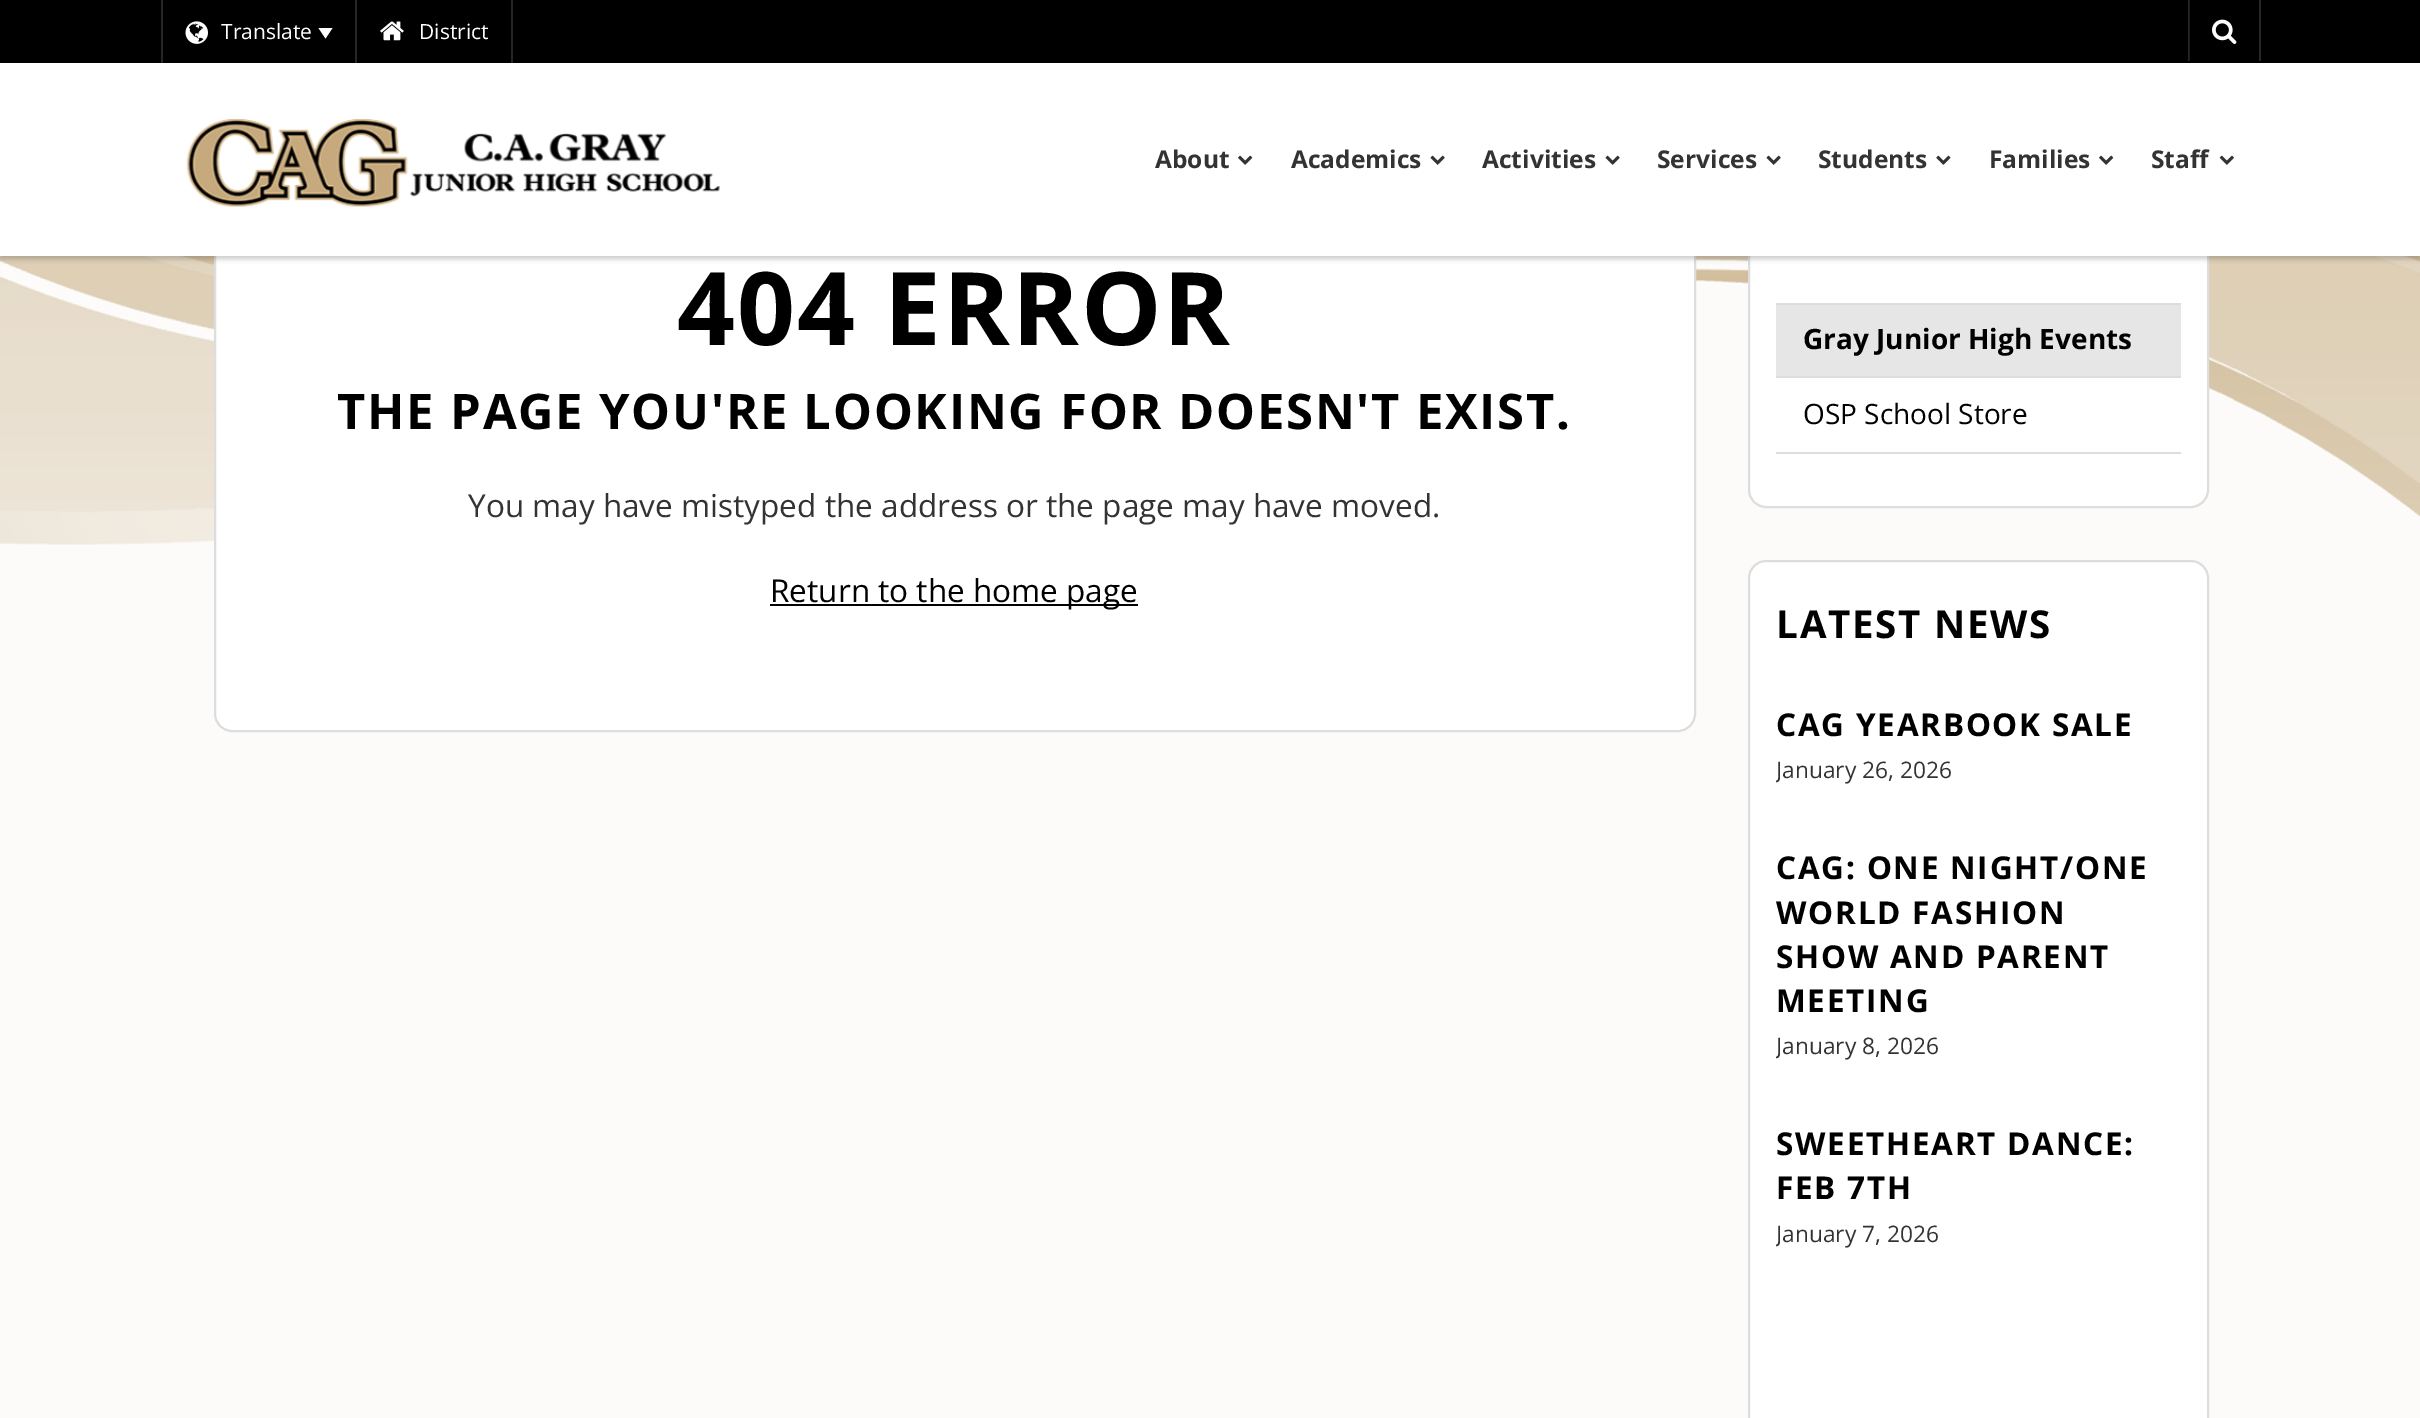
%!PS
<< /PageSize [2420 1418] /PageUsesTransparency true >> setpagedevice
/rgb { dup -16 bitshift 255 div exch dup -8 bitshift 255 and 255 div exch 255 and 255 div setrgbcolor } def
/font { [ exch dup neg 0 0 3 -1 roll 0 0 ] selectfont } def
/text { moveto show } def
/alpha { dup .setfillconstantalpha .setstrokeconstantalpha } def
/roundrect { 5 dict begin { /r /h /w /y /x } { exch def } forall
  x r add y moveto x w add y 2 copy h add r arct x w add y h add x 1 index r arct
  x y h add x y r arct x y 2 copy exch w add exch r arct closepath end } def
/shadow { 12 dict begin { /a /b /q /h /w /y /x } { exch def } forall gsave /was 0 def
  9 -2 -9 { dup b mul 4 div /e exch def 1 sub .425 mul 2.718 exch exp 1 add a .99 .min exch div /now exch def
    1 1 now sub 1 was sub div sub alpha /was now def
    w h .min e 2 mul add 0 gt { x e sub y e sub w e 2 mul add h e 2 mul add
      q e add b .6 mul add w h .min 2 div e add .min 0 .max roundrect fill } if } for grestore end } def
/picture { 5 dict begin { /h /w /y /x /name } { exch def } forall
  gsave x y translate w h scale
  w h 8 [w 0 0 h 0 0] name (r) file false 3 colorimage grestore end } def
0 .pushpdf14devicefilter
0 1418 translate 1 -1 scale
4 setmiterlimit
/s1 { /OpenSans-Regular 21 font 16#FFFFFF rgb } def
/s2 { /OpenSans-Bold 24.5 font 16#333333 rgb } def
/s3 { /OpenSans-Regular 31.5 font 16#333333 rgb } def
/s4 { /OpenSans-Regular 31.5 font 16#000000 rgb } def
/s5 { /OpenSans-Bold 28 font 16#000000 rgb } def
/s6 { /OpenSans-Regular 28 font 16#000000 rgb } def
/s7 { /OpenSans-Regular 22.75 font 16#333333 rgb } def
16#FDFBFA rgb
0 0 2420 1418 rectfill
(pic1.raw) 0 256 2420 289 picture
16#FFFFFF rgb
215 120 1480 611 17 roundrect gsave fill grestore
16#DDDDDD rgb
2 setlinewidth
stroke
16#FFFFFF rgb
1749 120 459 387 17 roundrect gsave fill grestore
16#DDDDDD rgb
stroke
16#FFFFFF rgb
0 63 2420 193 rectfill
16#000000 rgb
0 0 2420 63 rectfill
16#262626 rgb
161 0 2 63 rectfill
(pic2.raw) 185 21 23 23 picture
s1
(Translate) 221 39 text
318.5 28 moveto 332.5 28 lineto 325.5 38.5 lineto closepath fill
16#262626 rgb
355 0 2 63 rectfill
511 0 2 63 rectfill
(pic3.raw) 380 21 24 20 picture
s1
(District) 419 39 text
16#262626 rgb
2188 0 2 61 rectfill
0.3 alpha
16#000000 rgb
2189 0 1 61 rectfill
1 alpha
16#262626 rgb
2259 0 2 61 rectfill
(pic4.raw) 2212 19 25 25 picture
gsave
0 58 moveto 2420 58 lineto 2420 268 lineto 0 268 lineto closepath 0 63 moveto 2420 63 lineto 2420 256 lineto 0 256 lineto closepath eoclip newpath
16#000000 rgb
0 67 2420 192 0 2.5 0.2 shadow
grestore
(pic5.raw) 186 119 534 88 picture
s2
(About) 1155 168 text
(pic6.raw) 1238 155 15 10 picture
(Academics) 1291 168 text
(pic7.raw) 1430 155 15 10 picture
(Activities) 1482 168 text
(pic7.raw) 1605 155 15 10 picture
(Services) 1657 168 text
(pic7.raw) 1766 155 15 10 picture
(Students) 1818 168 text
(pic8.raw) 1936 155 15 10 picture
(Families) 1989 168 text
(pic6.raw) 2099 155 15 10 picture
(Staff) 2151 168 text
(pic9.raw) 2219 155 15 10 picture
/OpenSans-Bold 101.5 font
16#000000 rgb
677 345 moveto 1.75 0 (404 ERROR) ashow
/OpenSans-Bold 49 font
337 429 moveto 1.75 0 (THE PAGE YOU'RE LOOKING FOR DOESN'T EXIST.) ashow
s3
(You may have mistyped the address or the page may have moved.) 468 517 text
16#000000 rgb
770 604 368 2 rectfill
(Return to the home page) 770 602 text
16#DDDDDD rgb
1776 303 405 2 rectfill
1776 376 405 2 rectfill
16#E6E6E6 rgb
1776 305 405 71 rectfill
s5
(Gray Junior High Events) 1803 349 text
16#DDDDDD rgb
1776 452 405 2 rectfill
s6
(OSP School Store) 1803 424 text
16#FFFFFF rgb
1749 561 459 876 17 roundrect gsave fill grestore
16#DDDDDD rgb
stroke
/OpenSans-Bold 38.5 font
16#000000 rgb
1776 638 moveto 1.75 0 (LATEST NEWS) ashow
/OpenSans-Bold 31.5 font
1776 736 moveto 1.75 0 (CAG YEARBOOK SALE) ashow
gsave
1776 704 405 91 rectclip
s7
(January 26, 2026) 1776 778 text
grestore
1776 879 moveto 1.75 0 (CAG: ONE NIGHT/ONE) ashow
1776 924 moveto 1.75 0 (WORLD FASHION) ashow
1776 968 moveto 1.75 0 (SHOW AND PARENT) ashow
1776 1012 moveto 1.75 0 (MEETING) ashow
gsave
1776 847 405 222 rectclip
s7
(January 8, 2026) 1776 1054 text
grestore
1776 1155 moveto 1.75 0 (SWEETHEART DANCE:) ashow
1776 1199 moveto 1.75 0 (FEB 7TH) ashow
gsave
1776 1122 405 135 rectclip
s7
(January 7, 2026) 1776 1242 text
grestore
.poppdf14devicefilter showpage
